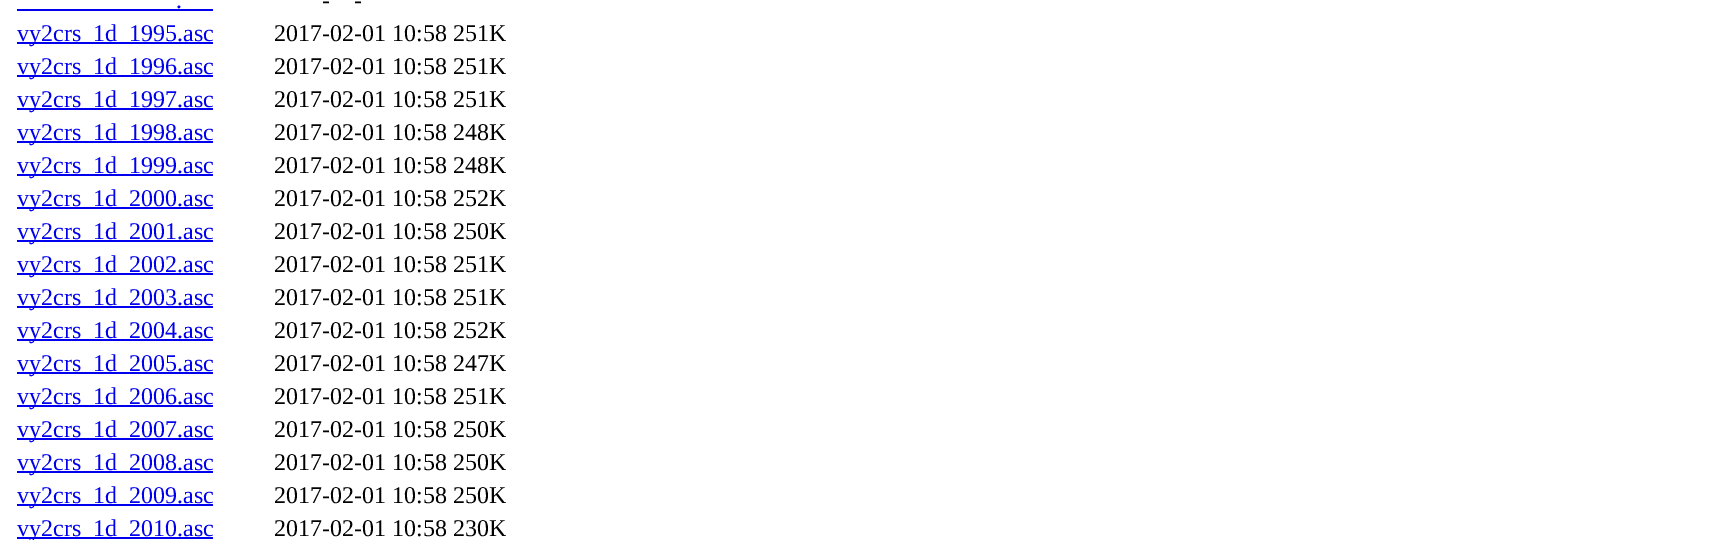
%!PS
<< /PageSize [1731 540] >> setpagedevice
/rgb { dup -16 bitshift 255 div exch dup -8 bitshift 255 and 255 div exch 255 and 255 div setrgbcolor } def
/font { [ exch dup neg 0 0 3 -1 roll 0 0 ] selectfont } def
/text { moveto show } def
0 540 translate 1 -1 scale
4 setmiterlimit
/s1 { /LiberationSerif-Regular 24 font 16#000000 rgb } def
/s2 { /LiberationSerif-Regular 24 font 16#0000EE rgb } def
16#FFFFFF rgb
0 0 1731 540 rectfill
s1
(-) 322 8 text
(-) 354 8 text
s2
(.) 176 8 text
17 9 196 2 rectfill
17 42 196 2 rectfill
(vy2crs_1d_1995.asc) 17 41 text
s1
(2017-02-01 10:58 251K) 274 41 text
16#0000EE rgb
17 75 196 2 rectfill
(vy2crs_1d_1996.asc) 17 74 text
s1
(2017-02-01 10:58 251K) 274 74 text
16#0000EE rgb
17 108 196 2 rectfill
(vy2crs_1d_1997.asc) 17 107 text
s1
(2017-02-01 10:58 251K) 274 107 text
16#0000EE rgb
17 141 196 2 rectfill
(vy2crs_1d_1998.asc) 17 140 text
s1
(2017-02-01 10:58 248K) 274 140 text
16#0000EE rgb
17 174 196 2 rectfill
(vy2crs_1d_1999.asc) 17 173 text
s1
(2017-02-01 10:58 248K) 274 173 text
16#0000EE rgb
17 207 196 2 rectfill
(vy2crs_1d_2000.asc) 17 206 text
s1
(2017-02-01 10:58 252K) 274 206 text
16#0000EE rgb
17 240 196 2 rectfill
(vy2crs_1d_2001.asc) 17 239 text
s1
(2017-02-01 10:58 250K) 274 239 text
16#0000EE rgb
17 273 196 2 rectfill
(vy2crs_1d_2002.asc) 17 272 text
s1
(2017-02-01 10:58 251K) 274 272 text
16#0000EE rgb
17 306 196 2 rectfill
(vy2crs_1d_2003.asc) 17 305 text
s1
(2017-02-01 10:58 251K) 274 305 text
16#0000EE rgb
17 339 196 2 rectfill
(vy2crs_1d_2004.asc) 17 338 text
s1
(2017-02-01 10:58 252K) 274 338 text
16#0000EE rgb
17 372 196 2 rectfill
(vy2crs_1d_2005.asc) 17 371 text
s1
(2017-02-01 10:58 247K) 274 371 text
16#0000EE rgb
17 405 196 2 rectfill
(vy2crs_1d_2006.asc) 17 404 text
s1
(2017-02-01 10:58 251K) 274 404 text
16#0000EE rgb
17 438 196 2 rectfill
(vy2crs_1d_2007.asc) 17 437 text
s1
(2017-02-01 10:58 250K) 274 437 text
16#0000EE rgb
17 471 196 2 rectfill
(vy2crs_1d_2008.asc) 17 470 text
s1
(2017-02-01 10:58 250K) 274 470 text
16#0000EE rgb
17 504 196 2 rectfill
(vy2crs_1d_2009.asc) 17 503 text
s1
(2017-02-01 10:58 250K) 274 503 text
16#0000EE rgb
17 537 196 2 rectfill
(vy2crs_1d_2010.asc) 17 536 text
s1
(2017-02-01 10:58 230K) 274 536 text
showpage
